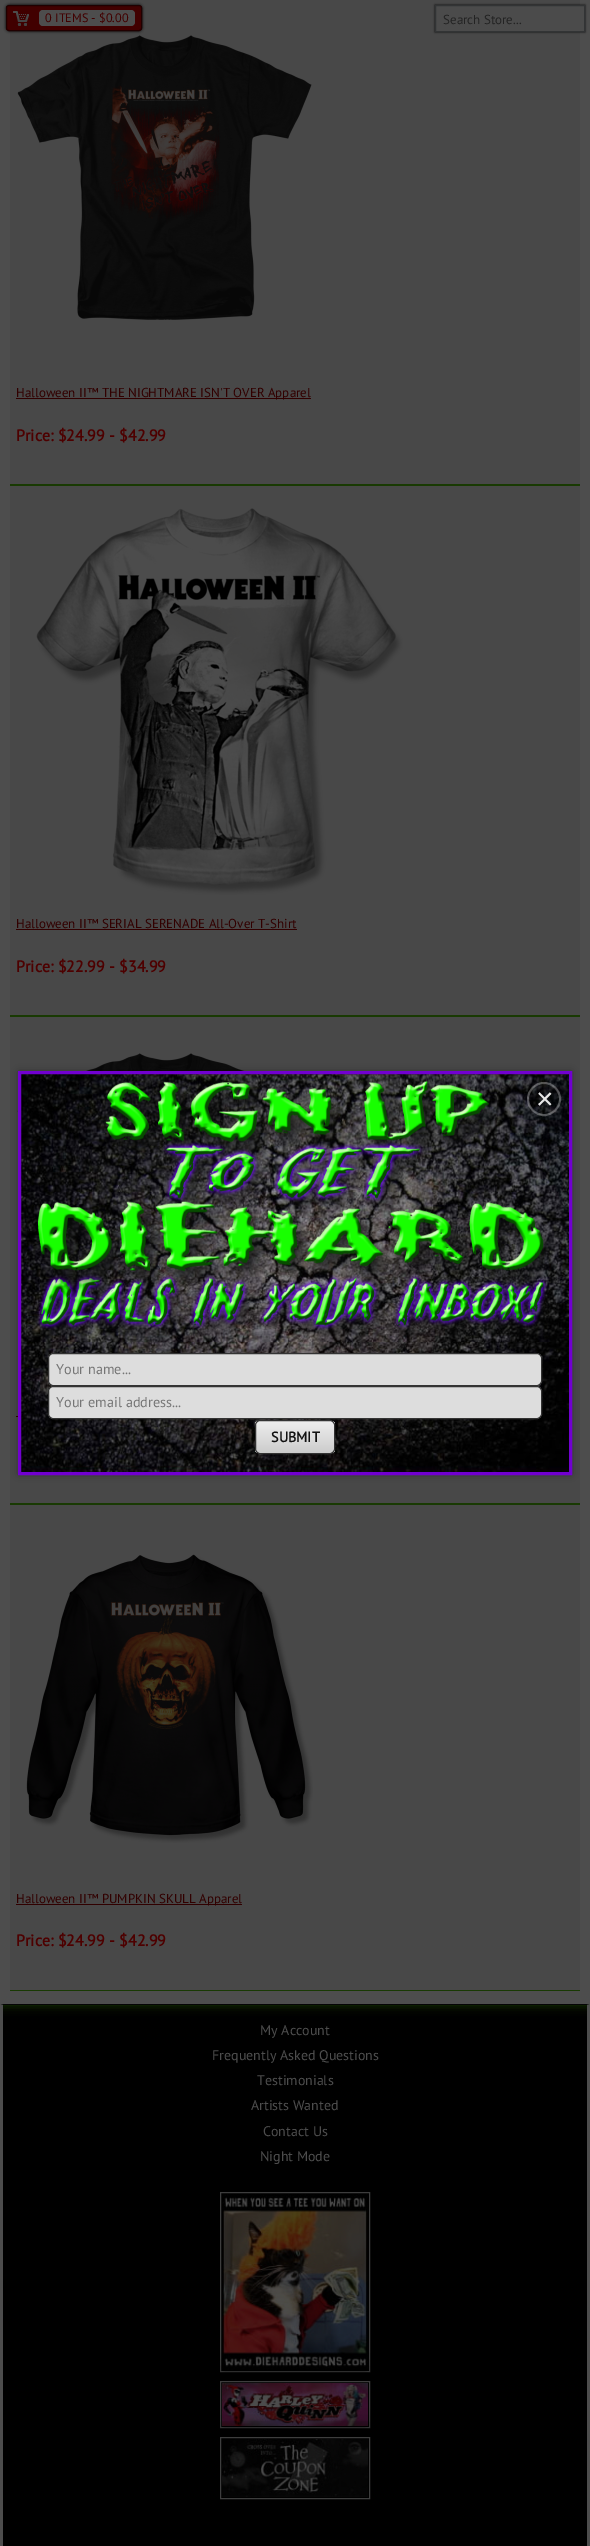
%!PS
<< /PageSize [590 2546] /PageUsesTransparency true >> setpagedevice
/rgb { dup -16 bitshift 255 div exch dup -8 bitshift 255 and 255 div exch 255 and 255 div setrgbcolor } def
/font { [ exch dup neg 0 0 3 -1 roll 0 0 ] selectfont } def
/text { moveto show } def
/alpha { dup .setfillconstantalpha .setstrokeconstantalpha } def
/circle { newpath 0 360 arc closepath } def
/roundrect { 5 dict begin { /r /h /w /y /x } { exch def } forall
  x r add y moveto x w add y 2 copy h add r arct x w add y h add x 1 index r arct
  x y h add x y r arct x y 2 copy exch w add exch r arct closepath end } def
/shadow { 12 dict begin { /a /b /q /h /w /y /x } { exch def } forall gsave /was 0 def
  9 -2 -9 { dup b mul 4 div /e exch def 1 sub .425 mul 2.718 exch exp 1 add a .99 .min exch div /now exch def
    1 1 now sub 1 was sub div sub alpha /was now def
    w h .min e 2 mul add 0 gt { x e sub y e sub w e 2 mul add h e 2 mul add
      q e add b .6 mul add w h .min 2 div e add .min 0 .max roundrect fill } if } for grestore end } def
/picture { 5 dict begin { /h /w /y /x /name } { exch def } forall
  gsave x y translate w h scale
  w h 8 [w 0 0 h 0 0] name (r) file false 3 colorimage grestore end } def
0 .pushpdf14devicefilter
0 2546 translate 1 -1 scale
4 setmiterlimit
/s1 { /PTSans-Regular 12.25 font 16#410000 rgb } def
/s2 { /PTSans-Regular 13 font 16#232323 rgb } def
/s3 { /PTSans-Regular 13 font 16#310000 rgb } def
/s4 { /PTSans-Bold 16 font 16#4D0000 rgb } def
/s5 { /PTSans-Regular 14 font 16#4D4D4D rgb } def
/s6 { /LiberationSans-Regular 30 font 16#E8E8E8 rgb } def
/s7 { /PTSans-Regular 14.25 font 16#757575 rgb } def
/s8 { /PTSans-Bold 14.25 font 16#111111 rgb } def
16#000000 rgb
0 0 590 2546 rectfill
16#183C00 rgb
-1 -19 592 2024 4 5 1 shadow
16#4D4D4D rgb
0 0 590 2004 rectfill
16#484848 rgb
10 0 570 484 rectfill
(pic2.raw) 17 35 295 285 picture
16#000000 rgb
6 5 136 26 3 1.5 1 shadow
gsave
6 5 136 26 3 roundrect clip newpath
16#410000 rgb
6 6 136 24 rectfill
grestore
16#200000 rgb
6.5 5.5 135 25 2.5 roundrect stroke
(pic1.raw) 13 11 16 15 picture
16#4D4D4D rgb
39 10 96 16 4 roundrect fill
s1
(0 ITEMS - $0.00) 45 22 text
16#000000 rgb
435 5 150 27 0 1 1 shadow
16#4B4B4B rgb
435.5 5.5 moveto 584.5 5.5 lineto 584.5 31.5 lineto 435.5 31.5 lineto closepath gsave fill grestore
16#323435 rgb
stroke
s2
(Search Store...) 443 24 text
16#193A03 rgb
10 484 570 2 rectfill
16#310000 rgb
16 398 295 1 rectfill
(Halloween II™ THE NIGHTMARE ISN'T OVER Apparel) 16 397 text
s4
(Price: $24.99 - $42.99) 16 441 text
16#484848 rgb
10 486 570 529 rectfill
16#193A03 rgb
10 1015 570 2 rectfill
(pic3.raw) 36 508 367 387 picture
s3
(Halloween II™ SERIAL SERENADE All-Over T-Shirt) 16 928 text
16 929 281 1 rectfill
s4
(Price: $22.99 - $34.99) 16 972 text
16#484848 rgb
10 1017 570 486 rectfill
16#193A03 rgb
10 1503 570 2 rectfill
(pic4.raw) 17 1053 238 59 picture
16#310000 rgb
16 1416 2 1 rectfill
16#484848 rgb
10 1505 570 485 rectfill
16#193A03 rgb
10 1990 570 1 rectfill
(pic5.raw) 26 1554 287 289 picture
16#310000 rgb
16 1904 226 1 rectfill
s3
(Halloween II™ PUMPKIN SKULL Apparel) 16 1903 text
s4
(Price: $24.99 - $42.99) 16 1946 text
16#050505 rgb
0 2004 moveto 3 2005 lineto 587 2005 lineto 590 2004 lineto closepath fill
16#4D4D4D rgb
590 2004 moveto 587 2005 lineto 587 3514 lineto 586 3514 lineto 588 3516 lineto 589 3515 590 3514 590 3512 curveto closepath fill
3 2005 moveto 0 2004 lineto 0 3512 lineto 0 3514 1 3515 2 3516 curveto 4 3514 lineto 3 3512 lineto closepath fill
s5
(My Account) 260 2035 text
(Frequently Asked Questions) 212 2060 text
(Testimonials) 257 2085 text
(Artists Wanted) 251 2110 text
(Contact Us) 263 2136 text
(Night Mode) 260 2161 text
16#3D3D3D rgb
220.5 2192.5 149 179 rectstroke
(pic6.raw) 222 2194 146 176 picture
16#000000 rgb
220 2381 150 47 0 13 1 shadow
16#3D3D3D rgb
220.5 2381.5 149 46 rectstroke
(pic7.raw) 222 2383 146 43 picture
16#000000 rgb
220 2437 150 62 0 13 1 shadow
16#3D3D3D rgb
220.5 2437.5 149 61 rectstroke
(pic8.raw) 222 2439 146 58 picture
16#000000 rgb
19 1072 552 402 0 4 0.4 shadow
(pic9.raw) 21 1074 548 398 picture
16#7100D0 rgb
3 setlinewidth
19.5 1072.5 551 401 rectstroke
(pic10.raw) 37 1081 519 262 picture
0.3 alpha
16#FFFFFF rgb
2 setlinewidth
544 1099 16 circle stroke
16#000000 rgb
544 1099 15 circle fill
1 alpha
s6
(×) 536 1109 text
16#DDDDDD rgb
48.5 1353.5 493 32 4.5 roundrect gsave fill grestore
16#333333 rgb
1 setlinewidth
stroke
s7
(Your name...) 56 1374 text
16#DDDDDD rgb
48.5 1386.5 493 32 4.5 roundrect gsave fill grestore
16#333333 rgb
stroke
s7
(Your email address...) 56 1407 text
gsave
255 1420 80 34 5 roundrect clip newpath
gsave 255 1421 moveto 335 1421 lineto 335 1453 lineto 255 1453 lineto closepath clip newpath
<< /ShadingType 2 /ColorSpace /DeviceRGB /Coords [295 1421 295 1453] /Extend [true true] /Function << /FunctionType 2 /Domain [0 1] /C0 [0.933 0.933 0.933] /C1 [0.8 0.8 0.8] /N 1 >> >> shfill grestore
grestore
16#333333 rgb
255.5 1420.5 79 33 4.5 roundrect stroke
s8
(SUBMIT) 271 1442 text
.poppdf14devicefilter showpage
